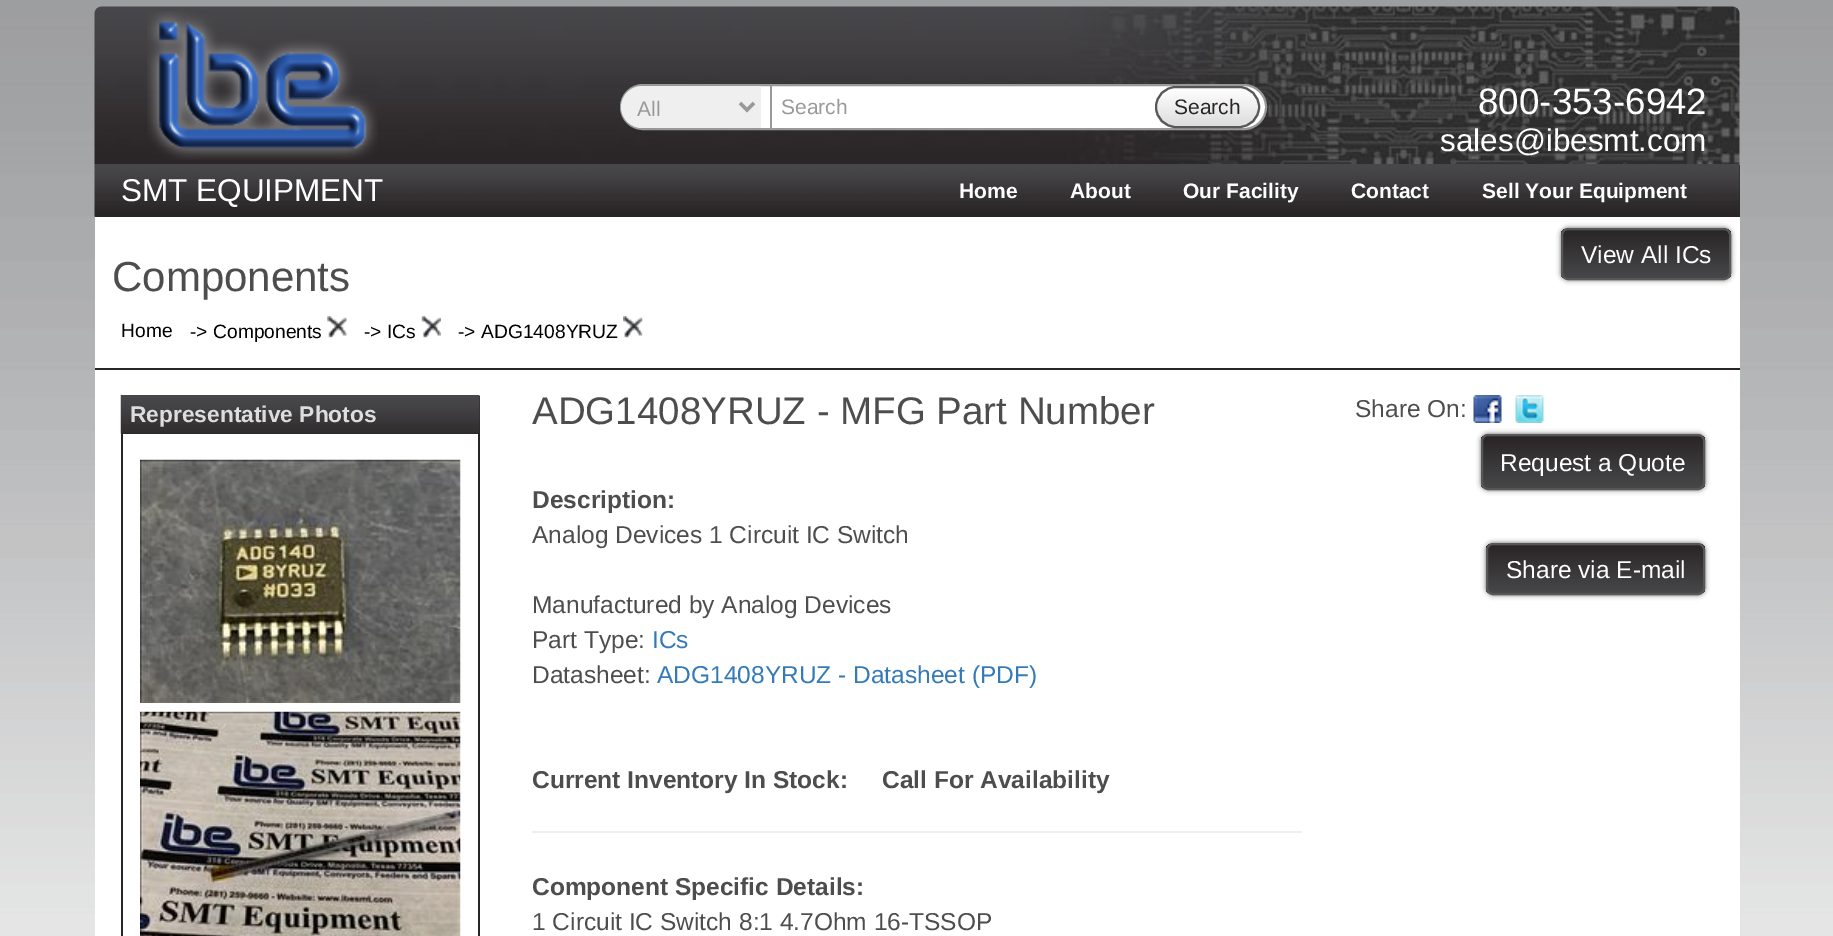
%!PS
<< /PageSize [1833 936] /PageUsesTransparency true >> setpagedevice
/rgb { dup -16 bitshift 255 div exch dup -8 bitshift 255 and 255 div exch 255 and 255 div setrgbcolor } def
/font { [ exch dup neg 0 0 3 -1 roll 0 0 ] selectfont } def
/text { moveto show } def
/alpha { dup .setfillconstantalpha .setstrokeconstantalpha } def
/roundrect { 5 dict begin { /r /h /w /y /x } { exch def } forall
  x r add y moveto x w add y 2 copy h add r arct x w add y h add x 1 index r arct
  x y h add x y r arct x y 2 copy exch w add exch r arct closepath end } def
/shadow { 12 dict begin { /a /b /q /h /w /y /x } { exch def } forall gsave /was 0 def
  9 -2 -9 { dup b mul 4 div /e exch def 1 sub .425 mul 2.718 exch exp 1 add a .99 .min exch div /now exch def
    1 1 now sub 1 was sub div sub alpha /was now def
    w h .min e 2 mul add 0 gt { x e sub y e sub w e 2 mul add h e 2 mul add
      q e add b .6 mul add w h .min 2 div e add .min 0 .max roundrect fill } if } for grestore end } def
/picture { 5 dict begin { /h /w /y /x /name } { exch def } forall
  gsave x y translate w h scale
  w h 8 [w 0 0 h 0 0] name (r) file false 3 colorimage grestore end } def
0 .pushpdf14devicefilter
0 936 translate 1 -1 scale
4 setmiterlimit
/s1 { /LiberationSans-Regular 21 font 16#999999 rgb } def
/s2 { /LiberationSans-Regular 21 font 16#292526 rgb } def
/s3 { /LiberationSans-Regular 36.75 font 16#FFFFFF rgb } def
/s4 { /LiberationSans-Regular 31.5 font 16#FFFFFF rgb } def
/s5 { /LiberationSans-Bold 21 font 16#FFFFFF rgb } def
/s6 { /LiberationSans-Regular 24.5 font 16#FFFFFF rgb } def
/s7 { /LiberationSans-Regular 42 font 16#4D4D4D rgb } def
/s8 { /LiberationSans-Regular 19.25 font 16#000000 rgb } def
/s9 { /LiberationSans-Bold 22.75 font 16#DDDDDD rgb } def
/s10 { /LiberationSans-Regular 38.5 font 16#4D4D4D rgb } def
/s11 { /LiberationSans-Bold 24.5 font 16#4D4D4D rgb } def
/s12 { /LiberationSans-Regular 24.5 font 16#4D4D4D rgb } def
/s13 { /LiberationSans-Regular 24.5 font 16#337AB7 rgb } def
16#FFFFFF rgb
0 0 1833 936 rectfill
(pic1.raw) 0 0 1833 936 picture
(pic2.raw) 94 6 1646 158 picture
(pic3.raw) 147 11 231 149 picture
621 85 645 44 22 roundrect gsave fill grestore
16#999999 rgb
2 setlinewidth
stroke
16#EFEFEF rgb
642 86 moveto 761 86 lineto 761 128 lineto 642 128 lineto 630.5 128 621 118.5 621 107 curveto 621 95.5 630.5 86 642 86 curveto closepath fill
16#999999 rgb
3.5 setlinewidth
740 103 moveto 747 110 lineto 754 103 lineto stroke
s1
(All) 637 116 text
770 86 2 42 rectfill
(Search) 781 114 text
gsave
1155 86 105 42 21 roundrect clip newpath
gsave 1155 88 moveto 1260 88 lineto 1260 126 lineto 1155 126 lineto closepath clip newpath
<< /ShadingType 2 /ColorSpace /DeviceRGB /Coords [1208 88 1208 126] /Extend [true true] /Function << /FunctionType 2 /Domain [0 1] /C0 [1 1 1] /C1 [0.867 0.867 0.867] /N 1 >> >> shfill grestore
grestore
16#575757 rgb
2 setlinewidth
1156 87 103 40 20 roundrect stroke
s2
(Search) 1174 114 text
s3
(800-353-6942) 1478 114 text
s4
(sales@ibesmt.com) 1440 151 text
16#292526 rgb
95 165 1645 52 rectfill
(pic4.raw) 94 164 1646 53 picture
s4
(SMT EQUIPMENT) 121 201 text
s5
(Home) 959 198 text
(About) 1070 198 text
(Our Facility) 1183 198 text
(Contact) 1351 198 text
(Sell Your Equipment) 1482 198 text
95 217 1645 719 rectfill
16#292526 rgb
95 368 1645 2 rectfill
16#666666 rgb
1561 228 170 52 7 2.5 1 shadow
gsave
1561 228 170 52 7 roundrect clip newpath
gsave 1561 229 moveto 1731 229 lineto 1731 278 lineto 1561 278 lineto closepath clip newpath
<< /ShadingType 2 /ColorSpace /DeviceRGB /Coords [1646 229 1646 278] /Extend [true true] /Function << /FunctionType 2 /Domain [0 1] /C0 [0.161 0.145 0.149] /C1 [0.278 0.278 0.286] /N 1 >> >> shfill grestore
grestore
16#575757 rgb
1562 229 168 50 6 roundrect stroke
s6
(View All ICs) 1581 263 text
s7
(Components) 112 291 text
s8
(Home) 121 337 text
(-> Components) 190 338 text
(pic5.raw) 327 316 20 22 picture
(-> ICs) 364 338 text
(pic6.raw) 421 316 20 22 picture
(-> ADG1408YRUZ) 458 338 text
(pic7.raw) 623 316 20 22 picture
16#292526 rgb
121 396 359 38 rectfill
(pic8.raw) 120 395 360 39 picture
s9
(Representative Photos) 130 422 text
16#292526 rgb
478 434 2 502 rectfill
121 434 2 502 rectfill
(pic9.raw) 140 459 321 244 picture
(pic10.raw) 140 711 321 225 picture
s10
(ADG1408YRUZ - MFG Part Number) 532 424 text
s11
(Description:) 532 508 text
s12
(Analog Devices 1 Circuit IC Switch) 532 543 text
(Manufactured by Analog Devices) 532 613 text
(Part Type:) 532 648 text
s13
(ICs) 652 648 text
s12
(Datasheet:) 532 683 text
s13
(ADG1408YRUZ - Datasheet \(PDF\)) 657 683 text
s11
(Current Inventory In Stock:) 532 788 text
(Call For Availability) 882 788 text
16#EEEEEE rgb
532 831 770 2 rectfill
s11
(Component Specific Details:) 532 895 text
s12
(1 Circuit IC Switch 8:1 4.7Ohm 16-TSSOP) 532 930 text
(Share On:) 1355 417 text
(pic11.raw) 1473 395 29 28 picture
(pic12.raw) 1515 395 29 28 picture
16#666666 rgb
1481 434 224 56 7 2.5 1 shadow
gsave
1481 434 224 56 7 roundrect clip newpath
gsave 1481 436 moveto 1705 436 lineto 1705 488 lineto 1481 488 lineto closepath clip newpath
<< /ShadingType 2 /ColorSpace /DeviceRGB /Coords [1593 436 1593 488] /Extend [true true] /Function << /FunctionType 2 /Domain [0 1] /C0 [0.161 0.145 0.149] /C1 [0.278 0.278 0.286] /N 1 >> >> shfill grestore
grestore
16#575757 rgb
1482 435 222 54 6 roundrect stroke
s6
(Request a Quote) 1500 471 text
16#666666 rgb
1486 543 219 52 7 2.5 1 shadow
gsave
1486 543 219 52 7 roundrect clip newpath
gsave 1486 544 moveto 1705 544 lineto 1705 593 lineto 1486 593 lineto closepath clip newpath
<< /ShadingType 2 /ColorSpace /DeviceRGB /Coords [1595 544 1595 593] /Extend [true true] /Function << /FunctionType 2 /Domain [0 1] /C0 [0.161 0.145 0.149] /C1 [0.278 0.278 0.286] /N 1 >> >> shfill grestore
grestore
16#575757 rgb
1487 544 217 50 6 roundrect stroke
s6
(Share via E-mail) 1506 578 text
.poppdf14devicefilter showpage
